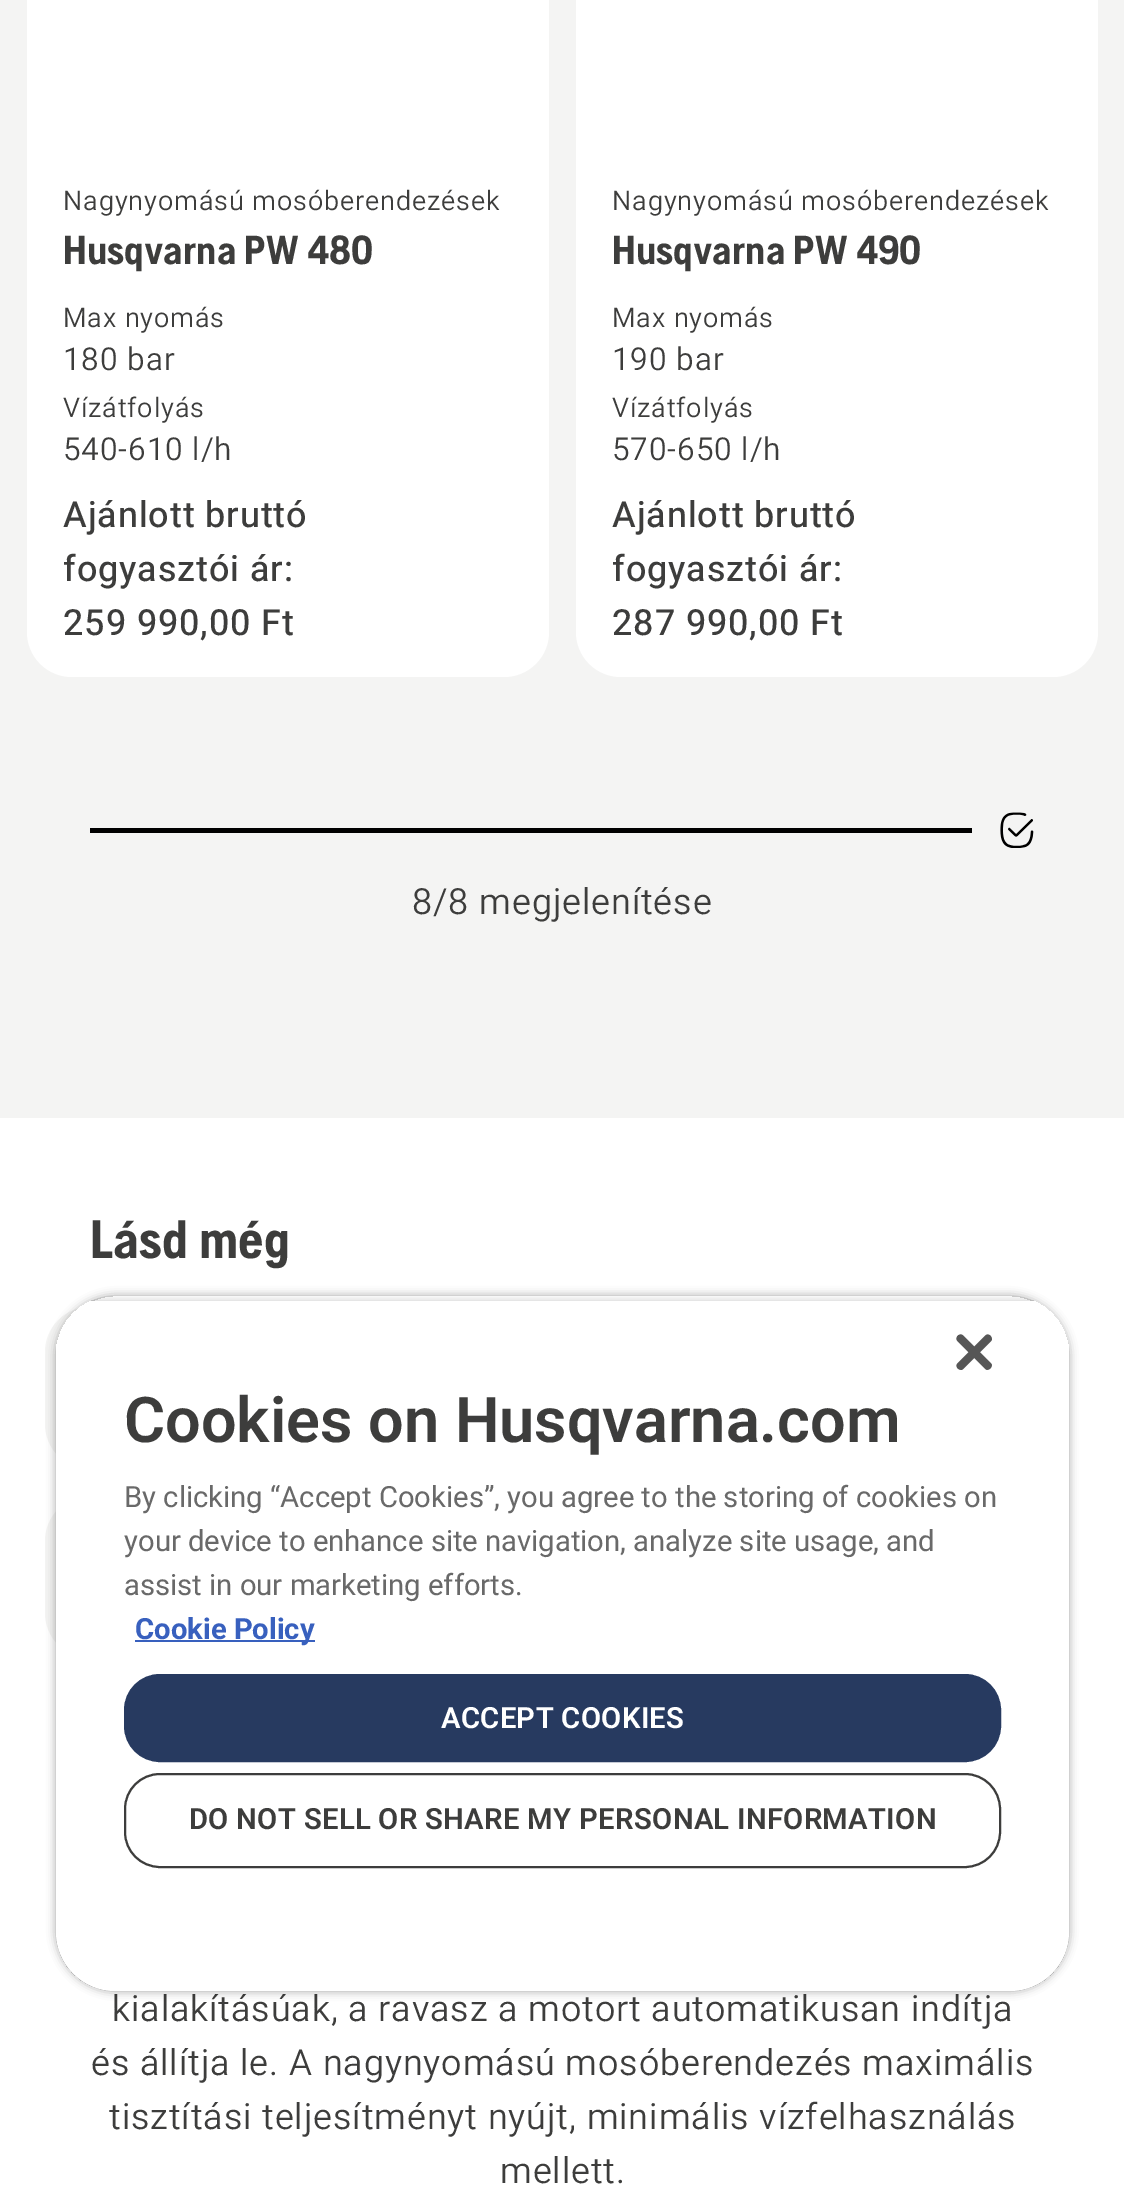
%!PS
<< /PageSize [1124 2192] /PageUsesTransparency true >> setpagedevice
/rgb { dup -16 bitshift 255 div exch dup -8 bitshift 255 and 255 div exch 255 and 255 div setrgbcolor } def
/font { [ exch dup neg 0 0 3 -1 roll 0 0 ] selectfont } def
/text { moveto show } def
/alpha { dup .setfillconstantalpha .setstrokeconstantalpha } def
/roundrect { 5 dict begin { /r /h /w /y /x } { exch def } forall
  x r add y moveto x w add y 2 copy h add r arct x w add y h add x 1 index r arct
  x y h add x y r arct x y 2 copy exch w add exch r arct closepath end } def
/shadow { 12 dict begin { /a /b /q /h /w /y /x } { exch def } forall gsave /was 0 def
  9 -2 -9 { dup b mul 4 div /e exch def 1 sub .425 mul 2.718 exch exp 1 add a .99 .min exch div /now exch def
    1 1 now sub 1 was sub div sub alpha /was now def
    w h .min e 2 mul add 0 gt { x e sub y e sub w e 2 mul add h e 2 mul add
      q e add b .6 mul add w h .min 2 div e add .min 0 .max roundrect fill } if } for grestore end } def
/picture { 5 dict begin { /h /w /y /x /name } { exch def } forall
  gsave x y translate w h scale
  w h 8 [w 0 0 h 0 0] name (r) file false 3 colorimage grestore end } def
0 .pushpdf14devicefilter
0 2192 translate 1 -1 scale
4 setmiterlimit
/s1 { /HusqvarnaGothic-Bold 40.5 font 16#3D3D3C rgb } def
/s2 { /HusqvarnaGothic-Bold 54 font 16#3D3D3C rgb } def
/s3 { /Roboto-SemiBold 63 font 16#3D3D3C rgb } def
/s4 { /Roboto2-Regular 29.25 font 16#696969 rgb } def
/s5 { /Roboto-Bold 29.25 font 16#3860BE rgb } def
16#FFFFFF rgb
0 0 1124 2192 rectfill
16#F4F4F3 rgb
0 0 1124 1118 rectfill
16#FFFFFF rgb
27 -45 522 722 45 roundrect fill
/Roboto-Light 27 font
16#3D3D3C rgb
63 210 moveto 0.9 0 (Nagynyomású mosóberendezések) ashow
s1
(Husqvarna PW 480) 63 264 text
/Roboto-Light 27 font
63 327 moveto 0.9 0 (Max nyomás) ashow
/Roboto-Light 31.5 font
63 370 moveto 0.9 0 (180 bar) ashow
/Roboto-Light 27 font
63 417 moveto 0.9 0 (Vízátfolyás) ashow
/Roboto-Light 31.5 font
63 460 moveto 0.9 0 (540-610 l/h) ashow
/Roboto-Regular 36 font
63 527 moveto 0.9 0 (Ajánlott bruttó) ashow
63 581 moveto 0.9 0 (fogyasztói ár:) ashow
63 635 moveto 0.9 0 (259 990,00 Ft) ashow
16#FFFFFF rgb
576 -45 522 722 45 roundrect fill
/Roboto-Light 27 font
16#3D3D3C rgb
612 210 moveto 0.9 0 (Nagynyomású mosóberendezések) ashow
s1
(Husqvarna PW 490) 612 264 text
/Roboto-Light 27 font
612 327 moveto 0.9 0 (Max nyomás) ashow
/Roboto-Light 31.5 font
612 370 moveto 0.9 0 (190 bar) ashow
/Roboto-Light 27 font
612 417 moveto 0.9 0 (Vízátfolyás) ashow
/Roboto-Light 31.5 font
612 460 moveto 0.9 0 (570-650 l/h) ashow
/Roboto-Regular 36 font
612 527 moveto 0.9 0 (Ajánlott bruttó) ashow
612 581 moveto 0.9 0 (fogyasztói ár:) ashow
612 635 moveto 0.9 0 (287 990,00 Ft) ashow
16#000000 rgb
90 828 882 5 rectfill
(pic1.raw) 1000 812 34 36 picture
/Roboto-Light 36 font
16#3D3D3C rgb
412 914 moveto 0.9 0 (8/8 megjelenítése) ashow
s2
(Lásd még) 90 1258 text
16#F4F4F3 rgb
45 1307 900 162 45 roundrect fill
45 1496 900 162 45 roundrect fill
/Roboto-Light 36 font
16#3D3D3C rgb
112 2021 moveto 0.9 0 (kialakításúak, a ravasz a motort automatikusan indítja) ashow
91 2075 moveto 0.9 0 (és állítja le. A nagynyomású mosóberendezés maximális) ashow
109 2129 moveto 0.9 0 (tisztítási teljesítményt nyújt, minimális vízfelhasználás) ashow
500 2183 moveto 0.9 0 (mellett.) ashow
gsave
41 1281 moveto 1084 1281 lineto 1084 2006 lineto 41 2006 lineto closepath 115 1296 moveto 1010 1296 lineto 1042.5 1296 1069 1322.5 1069 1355 curveto 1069 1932 lineto 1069 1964.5 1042.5 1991 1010 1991 curveto 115 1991 lineto 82.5 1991 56 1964.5 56 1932 curveto 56 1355 lineto 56 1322.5 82.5 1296 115 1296 curveto closepath eoclip newpath
16#000000 rgb
56 1296 1013 695 59 4.5 0.35 shadow
grestore
gsave
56 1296 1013 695 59 roundrect clip newpath
16#000000 rgb
56 1301 1013 690 0 4.5 0.2 shadow
grestore
gsave
56 1296 1013 695 59 roundrect clip newpath
16#FFFFFF rgb
56 1301 moveto 1069 1301 lineto 1069 1932 lineto 1069 1964.5 1042.5 1991 1010 1991 curveto 115 1991 lineto 82.5 1991 56 1964.5 56 1932 curveto closepath fill
grestore
(pic2.raw) 956 1334 36 36 picture
s3
(Cookies on Husqvarna.com) 124 1442 text
s4
(By clicking “Accept Cookies”, you agree to the storing of cookies on) 124 1507 text
(your device to enhance site navigation, analyze site usage, and) 124 1551 text
(assist in our marketing efforts.) 124 1595 text
16#3860BE rgb
135 1640 180 2 rectfill
s5
(Cookie Policy) 135 1639 text
16#273A60 rgb
125 1675 875 86 35 roundrect gsave fill grestore
2 setlinewidth
stroke
/Roboto-SemiBold 29.25 font
16#FFFFFF rgb
441 1728 moveto 0.3 0 (ACCEPT COOKIES) ashow
16#3D3D3C rgb
125 1774 875 93 35 roundrect stroke
189 1829 moveto 0.3 0 (DO NOT SELL OR SHARE MY PERSONAL INFORMATION) ashow
.poppdf14devicefilter showpage
